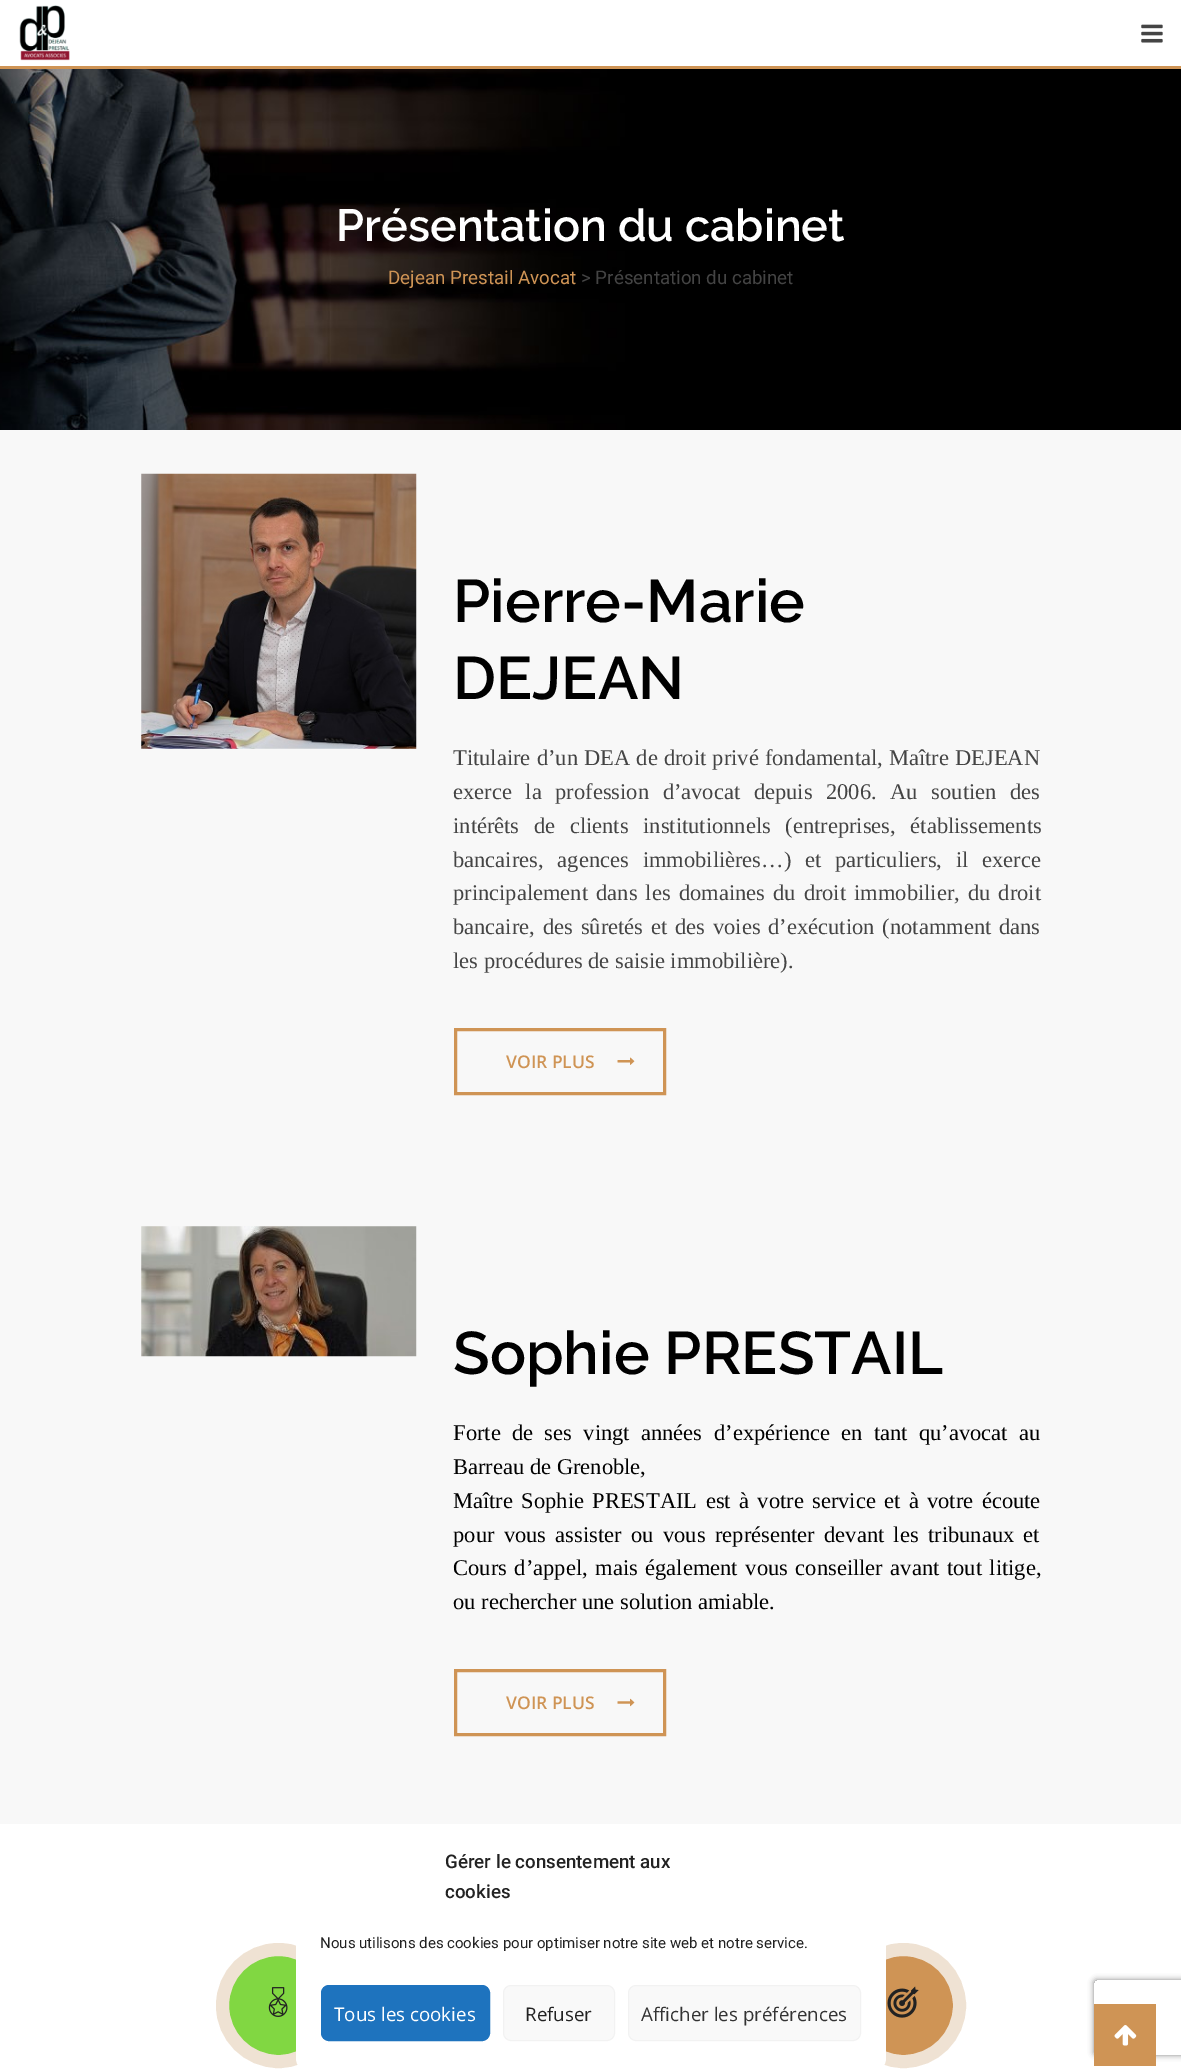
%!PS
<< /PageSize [1181 2072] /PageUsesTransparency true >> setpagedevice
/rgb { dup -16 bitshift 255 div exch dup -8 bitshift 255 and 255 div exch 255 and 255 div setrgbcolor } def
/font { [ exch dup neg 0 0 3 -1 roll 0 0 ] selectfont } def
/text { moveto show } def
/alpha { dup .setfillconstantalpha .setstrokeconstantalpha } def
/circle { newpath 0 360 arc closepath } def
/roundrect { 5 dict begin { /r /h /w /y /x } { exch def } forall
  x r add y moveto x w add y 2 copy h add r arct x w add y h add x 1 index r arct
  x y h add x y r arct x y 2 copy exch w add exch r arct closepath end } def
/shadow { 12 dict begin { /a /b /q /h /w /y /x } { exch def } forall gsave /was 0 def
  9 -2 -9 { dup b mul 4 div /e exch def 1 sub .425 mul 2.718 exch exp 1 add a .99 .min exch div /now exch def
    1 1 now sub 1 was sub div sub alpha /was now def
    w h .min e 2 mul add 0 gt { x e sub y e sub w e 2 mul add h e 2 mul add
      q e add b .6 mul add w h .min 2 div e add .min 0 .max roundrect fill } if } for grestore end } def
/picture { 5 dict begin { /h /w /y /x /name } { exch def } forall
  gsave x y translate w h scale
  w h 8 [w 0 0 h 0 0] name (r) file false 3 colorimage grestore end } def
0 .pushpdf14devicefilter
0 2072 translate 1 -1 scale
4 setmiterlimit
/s1 { /Raleway-SemiBold 45 font 16#FFFFFF rgb } def
/s2 { /Roboto-Regular 18.75 font 16#CF9455 rgb } def
/s3 { /Roboto-Regular 18.75 font 16#444444 rgb } def
/s4 { /Raleway-SemiBold 60 font 16#000000 rgb } def
/s5 { /LiberationSerif-Regular 22.5 font 16#444444 rgb } def
/s6 { /OpenSans-SemiBold 17.5 font 16#CF9455 rgb } def
/s7 { /LiberationSerif-Regular 22.5 font 16#000000 rgb } def
/s8 { /Roboto-Medium 18.75 font 16#222222 rgb } def
/s9 { /Roboto-Regular 15 font 16#222222 rgb } def
/s10 { /OpenSans-Regular 18.75 font 16#FFFFFF rgb } def
/s11 { /OpenSans-Regular 18.75 font 16#222222 rgb } def
/s12 { /OpenSans-Regular 18.75 font 16#333333 rgb } def
16#FFFFFF rgb
0 0 1181 2072 rectfill
16#CF9455 rgb
0 66 1181 3 rectfill
(pic1.raw) 19 5 51 56 picture
(pic2.raw) 1141 24 22 19 picture
(pic3.raw) 0 69 1181 361 picture
s1
(Présentation du cabinet) 336 241 text
s2
(Dejean Prestail Avocat) 388 284 text
s3
(> Présentation du cabinet) 581 284 text
16#F8F8F8 rgb
0 430 1181 1394 rectfill
(pic4.raw) 141 473 276 276 picture
s4
(Pierre-Marie) 453 622 text
(DEJEAN) 453 699 text
/LiberationSerif-Regular 22.5 font
16#444444 rgb
453 765 moveto 0.5 0 32 (Titulaire d’un DEA de droit privé fondamental, Maître DEJEAN) widthshow
453 799 moveto 8 0 32 (exerce la profession d’avocat depuis 2006. Au soutien des) widthshow
453 833 moveto 9 0 32 (intérêts de clients institutionnels \(entreprises, établissements) widthshow
453 867 moveto 8.25 0 32 (bancaires, agences immobilières…\) et particuliers, il exerce) widthshow
453 900 moveto 2.5 0 32 (principalement dans les domaines du droit immobilier, du droit) widthshow
453 934 moveto 2.25 0 32 (bancaire, des sûretés et des voies d’exécution \(notamment dans) widthshow
(les procédures de saisie immobilière\).) 453 968 text
16#CF9455 rgb
3 setlinewidth
455.5 1029.5 209 64 rectstroke
s6
(VOIR PLUS) 506 1068 text
(pic5.raw) 617 1057 18 8 picture
(pic6.raw) 141 1226 276 131 picture
s4
(Sophie PRESTAIL) 453 1374 text
/LiberationSerif-Regular 22.5 font
453 1440 moveto 5.75 0 32 (Forte de ses vingt années d’) widthshow
(expérience) 733 1440 text
841 1440 moveto 5.75 0 32 (en tant qu’avocat au) widthshow
(Barreau de Grenoble,) 453 1474 text
453 1508 moveto 2.75 0 32 (Maître Sophie PRESTAIL est à votre service et à votre écoute) widthshow
453 1542 moveto 3.75 0 32 (pour vous assister ou vous représenter devant les tribunaux et) widthshow
453 1575 moveto 2 0 32 (Cours d’appel, mais également vous conseiller avant tout litige,) widthshow
(ou rechercher une solution amiable.) 453 1609 text
16#CF9455 rgb
455.5 1670.5 209 64 rectstroke
s6
(VOIR PLUS) 506 1709 text
(pic7.raw) 617 1698 18 9 picture
16#81D742 rgb
278.5 2005.5 56 circle gsave fill grestore
16#EFE2D3 rgb
13 setlinewidth
stroke
(pic8.raw) 268 1987 20 30 picture
16#CF9455 rgb
903.5 2005.5 56 circle gsave fill grestore
16#EFE2D3 rgb
stroke
(pic9.raw) 887 1986 32 32 picture
16#FFFFFF rgb
296 1828 590 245 15 roundrect fill
s8
(Gérer le consentement aux) 445 1868 text
(cookies) 445 1898 text
s9
(Nous utilisons des cookies pour optimiser notre site web et notre service.) 320 1948 text
16#1E73BE rgb
321.5 1985.5 168 55 7.5 roundrect gsave fill grestore
1 setlinewidth
stroke
s10
(Tous les cookies) 334 2021 text
16#F9F9F9 rgb
503.5 1985.5 111 55 7.5 roundrect gsave fill grestore
16#F2F2F2 rgb
stroke
s11
(Refuser) 525 2021 text
16#F9F9F9 rgb
628.5 1985.5 232 55 7.5 roundrect gsave fill grestore
16#F2F2F2 rgb
stroke
s12
(Afficher les préférences) 641 2021 text
gsave
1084 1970 moveto 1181 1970 lineto 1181 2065 lineto 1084 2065 lineto closepath 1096.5 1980 moveto 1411.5 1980 lineto 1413 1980 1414 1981 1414 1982.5 curveto 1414 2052.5 lineto 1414 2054 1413 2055 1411.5 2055 curveto 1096.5 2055 lineto 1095 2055 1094 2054 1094 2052.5 curveto 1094 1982.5 lineto 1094 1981 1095 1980 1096.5 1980 curveto closepath eoclip newpath
16#808080 rgb
1094 1980 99 75 2.5 3 1 shadow
grestore
16#CF9455 rgb
1094 2004 62 62 rectfill
(pic10.raw) 1114 2025 23 21 picture
.poppdf14devicefilter showpage
